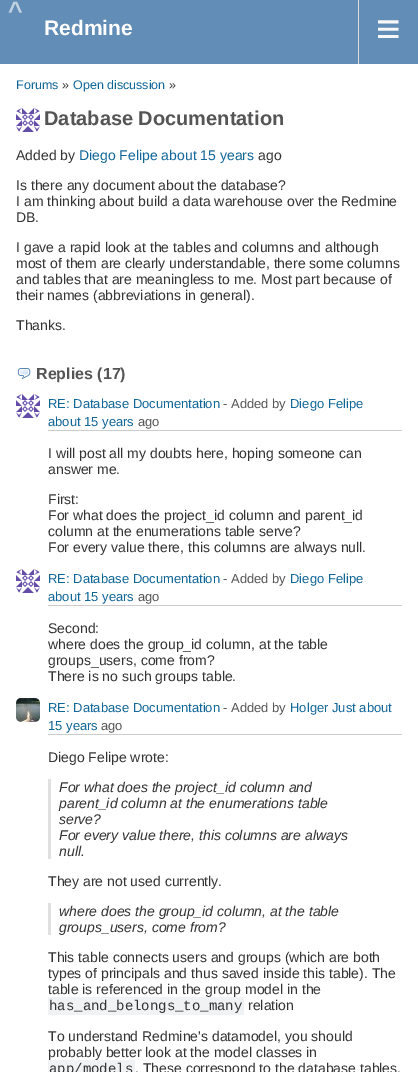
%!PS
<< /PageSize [418 1072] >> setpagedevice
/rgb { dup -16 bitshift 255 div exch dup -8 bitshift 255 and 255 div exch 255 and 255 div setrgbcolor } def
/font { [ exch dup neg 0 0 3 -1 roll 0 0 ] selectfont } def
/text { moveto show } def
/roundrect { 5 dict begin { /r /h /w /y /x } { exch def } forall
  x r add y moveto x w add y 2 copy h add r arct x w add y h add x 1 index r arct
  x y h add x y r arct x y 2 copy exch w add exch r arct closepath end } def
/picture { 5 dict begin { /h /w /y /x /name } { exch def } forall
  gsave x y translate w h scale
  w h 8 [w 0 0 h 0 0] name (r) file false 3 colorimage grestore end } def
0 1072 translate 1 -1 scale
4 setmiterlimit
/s1 { /LiberationSans-Bold 21 font 16#FFFFFF rgb } def
/s2 { /LiberationSans-Regular 42 font 16#F8F8F8 rgb } def
/s3 { /LiberationSans-Regular 12.5 font 16#116699 rgb } def
/s4 { /LiberationSans-Regular 12.5 font 16#333333 rgb } def
/s5 { /LiberationSans-Bold 20 font 16#555555 rgb } def
/s6 { /LiberationSans-Regular 14 font 16#333333 rgb } def
/s7 { /LiberationSans-Regular 14 font 16#116699 rgb } def
/s8 { /LiberationSans-Bold 16 font 16#555555 rgb } def
/s9 { /LiberationSans-Regular 13 font 16#116699 rgb } def
/s10 { /LiberationSans-Regular 13 font 16#555555 rgb } def
/s11 { /LiberationSans-Italic 14 font 16#333333 rgb } def
/s12 { /LiberationMono-Regular 14 font 16#333333 rgb } def
16#FFFFFF rgb
0 0 418 1072 rectfill
16#628DB6 rgb
0 0 418 64 rectfill
/LiberationSans-Bold 25 font
16#C0D1E2 rgb
8 19 moveto 4 0 (^) ashow
s1
(Redmine) 44 35 text
16#DDDDDD rgb
358 0 1 64 rectfill
s2
(≡) 376 43 text
s3
(Forums) 16 89 text
s4
(») 62 89 text
s3
(Open discussion) 73 89 text
s4
(») 169 89 text
(pic1.raw) 16 108 24 24 picture
s5
(Database Documentation) 44 125 text
s6
(Added by) 16 160 text
s7
(Diego Felipe about 15 years) 79 160 text
s6
(ago) 258 160 text
(Is there any document about the database?) 16 190 text
(I am thinking about build a data warehouse over the Redmine) 16 206 text
(DB.) 16 222 text
(I gave a rapid look at the tables and columns and although) 16 252 text
(most of them are clearly understandable, there some columns) 16 268 text
(and tables that are meaningless to me. Most part because of) 16 284 text
(their names \(abbreviations in general\).) 16 300 text
(Thanks.) 16 330 text
(pic2.raw) 17 368 14 11 picture
s8
(Replies \(17\)) 36 379 text
16#CCCCCC rgb
48 430 354 1 rectfill
(pic1.raw) 16 394 24 24 picture
s9
(RE: Database Documentation) 48 408 text
s10
(- Added by) 223 408 text
s9
(Diego Felipe) 290 408 text
(about 15 years) 48 426 text
s10
(ago) 138 426 text
s6
(I will post all my doubts here, hoping someone can) 48 458 text
(answer me.) 48 474 text
(First:) 48 504 text
(For what does the project_id column and parent_id) 48 520 text
(column at the enumerations table serve?) 48 536 text
(For every value there, this columns are always null.) 48 552 text
16#CCCCCC rgb
48 605 354 1 rectfill
(pic1.raw) 16 569 24 24 picture
s9
(RE: Database Documentation) 48 583 text
s10
(- Added by) 223 583 text
s9
(Diego Felipe) 290 583 text
(about 15 years) 48 601 text
s10
(ago) 138 601 text
s6
(Second:) 48 633 text
(where does the group_id column, at the table) 48 649 text
(groups_users, come from?) 48 665 text
(There is no such groups table.) 48 681 text
16#CCCCCC rgb
48 734 354 1 rectfill
(pic3.raw) 16 698 24 24 picture
s9
(RE: Database Documentation) 48 712 text
s10
(- Added by) 223 712 text
s9
(Holger Just about) 290 712 text
(15 years) 48 730 text
s10
(ago) 101 730 text
s6
(Diego Felipe wrote:) 48 762 text
16#E0E0E0 rgb
48 779 3 80 rectfill
s11
(For what does the project_id column and) 59 792 text
(parent_id column at the enumerations table) 59 808 text
(serve?) 59 824 text
(For every value there, this columns are always) 59 840 text
(null.) 59 856 text
s6
(They are not used currently.) 48 886 text
16#E0E0E0 rgb
48 903 3 32 rectfill
s11
(where does the group_id column, at the table) 59 916 text
(groups_users, come from?) 59 932 text
s6
(This table connects users and groups \(which are both) 48 962 text
(types of principals and thus saved inside this table\). The) 48 978 text
(table is referenced in the group model in the) 48 994 text
16#F0F2F4 rgb
48 997 196 18 1.5 roundrect fill
s12
(has_and_belongs_to_many) 49 1010 text
s6
(relation) 248 1010 text
(To understand Redmine's datamodel, you should) 48 1041 text
(probably better look at the model classes in) 48 1057 text
16#F0F2F4 rgb
48 1060 87 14 1.5 roundrect fill
s12
(app/models) 49 1073 text
s6
(. These correspond to the database tables.) 135 1073 text
showpage
